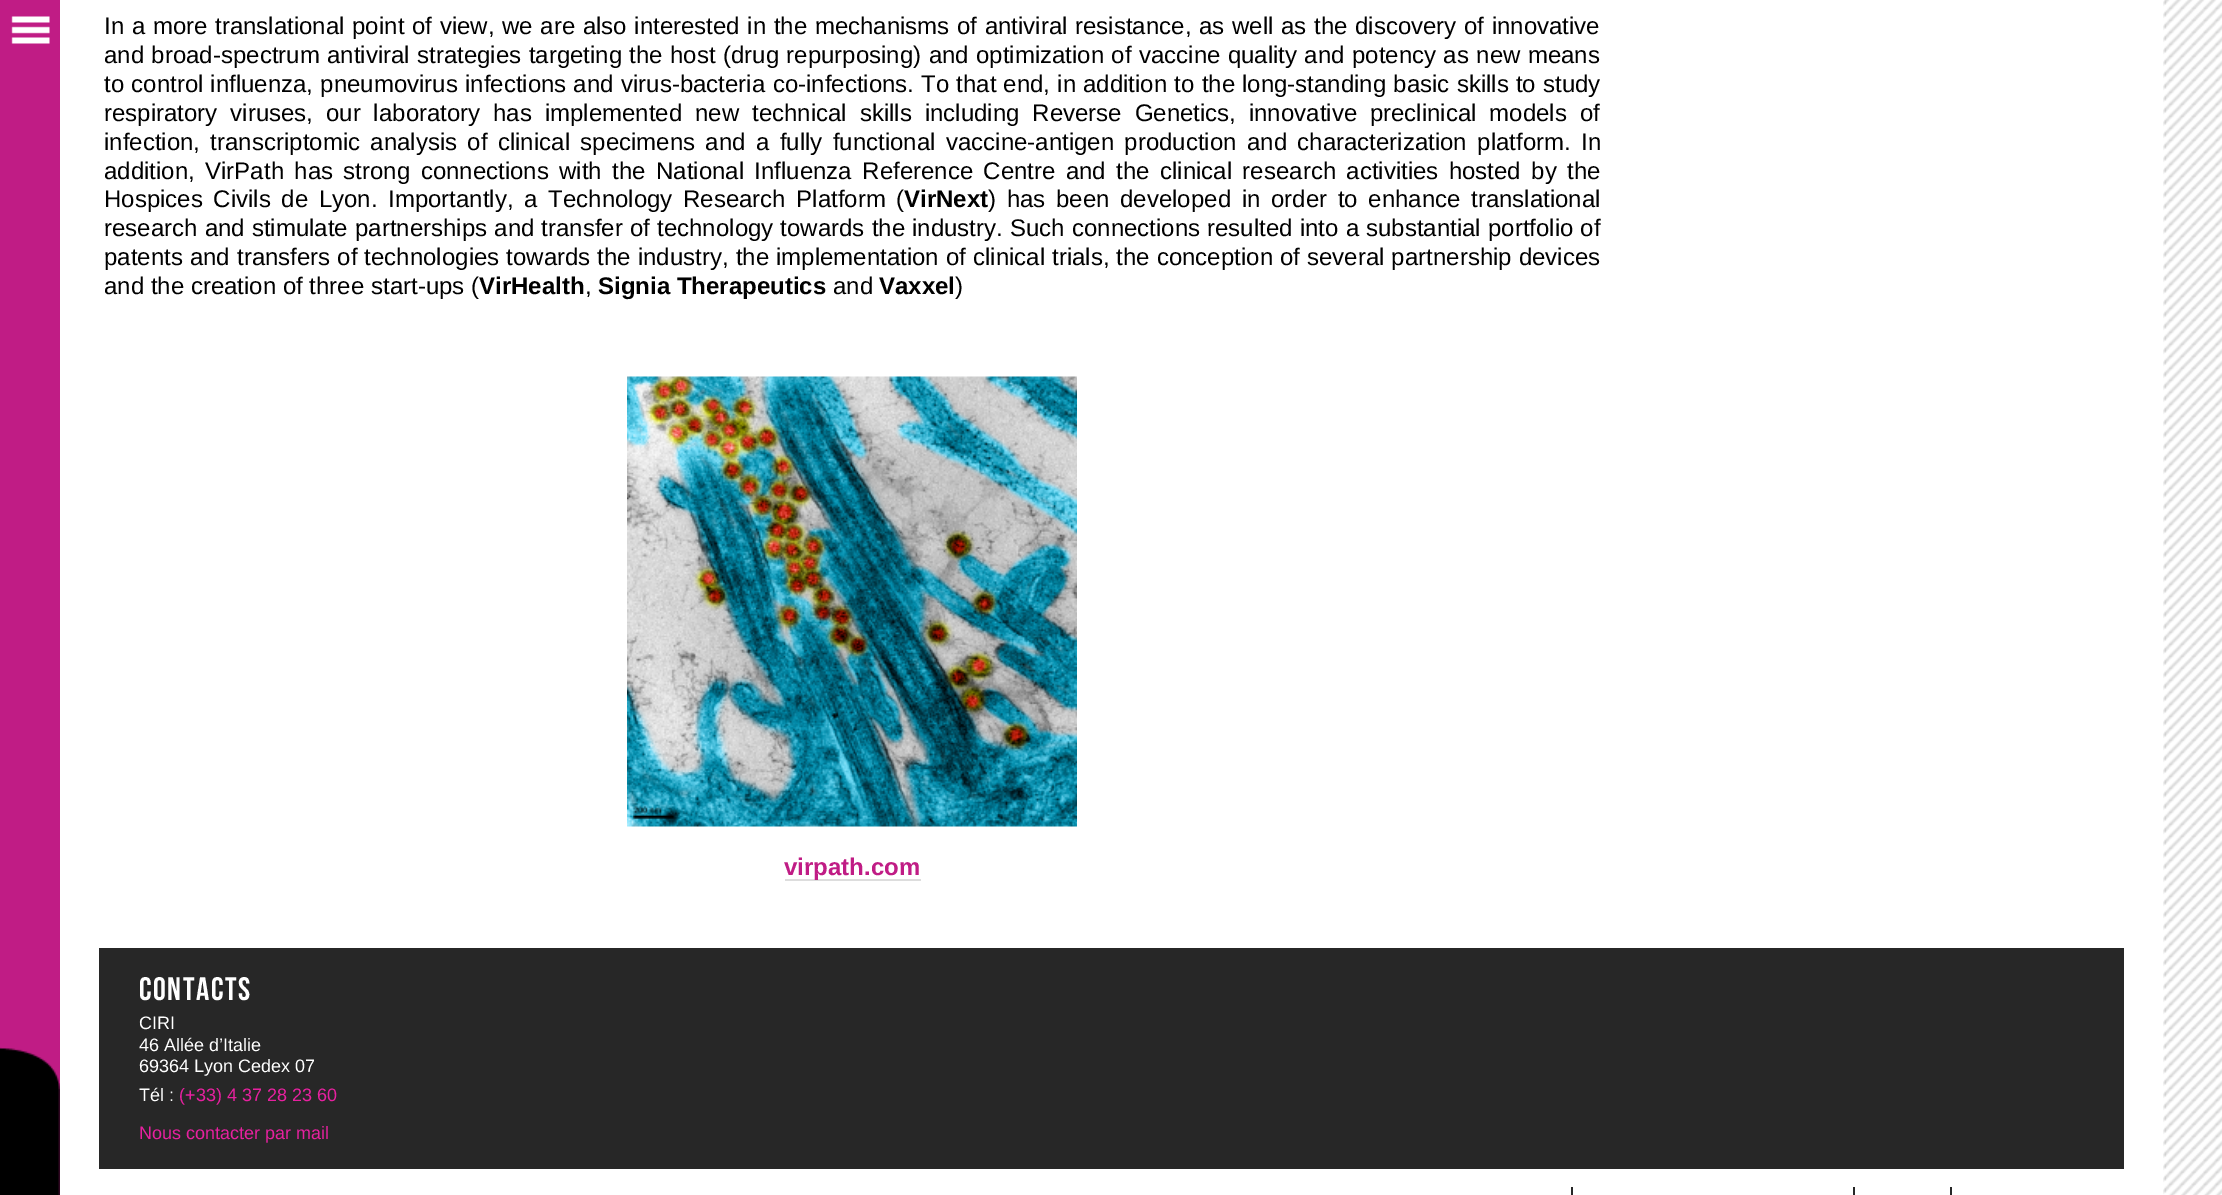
%!PS
<< /PageSize [2222 1195] >> setpagedevice
/rgb { dup -16 bitshift 255 div exch dup -8 bitshift 255 and 255 div exch 255 and 255 div setrgbcolor } def
/font { [ exch dup neg 0 0 3 -1 roll 0 0 ] selectfont } def
/text { moveto show } def
/picture { 5 dict begin { /h /w /y /x /name } { exch def } forall
  gsave x y translate w h scale
  w h 8 [w 0 0 h 0 0] name (r) file false 3 colorimage grestore end } def
0 1195 translate 1 -1 scale
4 setmiterlimit
/s1 { /LiberationSans-Bold 24 font 16#000000 rgb } def
/s2 { /LiberationSans-Regular 24 font 16#000000 rgb } def
/s3 { /LiberationSans-Bold 24 font 16#C01C85 rgb } def
/s4 { /LiberationSans-Regular 18 font 16#FFFFFF rgb } def
/s5 { /LiberationSans-Regular 18 font 16#E6219F rgb } def
16#FFFFFF rgb
0 0 2222 1195 rectfill
16#C01C85 rgb
0 0 60 1195 rectfill
(pic1.raw) 0 1047 60 148 picture
(pic2.raw) 11 16 39 28 picture
/LiberationSans-Regular 24 font
16#000000 rgb
104 34 moveto 1 0 32 (In a more translational point of view, we are also interested in the mechanisms of antiviral resistance, as well as the discovery of innovative) widthshow
104 63 moveto 0.75 0 32 (and broad-spectrum antiviral strategies targeting the host \(drug repurposing\) and optimization of vaccine quality and potency as new means) widthshow
104 92 moveto 0.5 0 32 (to control influenza, pneumovirus infections and) widthshow
621 92 moveto 1 0 32 (virus-bacteria co-infections.) widthshow
921 92 moveto 0.5 0 32 (To that end, in addition to the long-standing basic skills to study) widthshow
104 121 moveto 6.25 0 32 (respiratory viruses, our laboratory has implemented new technical skills including Reverse Genetics, innovative preclinical models of) widthshow
104 150 moveto 3.75 0 32 (infection, transcriptomic analysis of clinical specimens and a fully functional vaccine-antigen production and characterization platform. In) widthshow
104 179 moveto 3.75 0 32 (addition, VirPath has strong connections with the National Influenza Reference Centre and the clinical research activities hosted by the) widthshow
104 207 moveto 4 0 32 (Hospices Civils de Lyon. Importantly, a Technology Research Platform \() widthshow
s1
(VirNext) 904 207 text
/LiberationSans-Regular 24 font
988 207 moveto 4 0 32 (\) has been developed in order to enhance translational) widthshow
104 236 moveto 0.5 0 32 (research and stimulate partnerships and transfer of technology towards the industry. Such connections resulted into a substantial portfolio of) widthshow
104 265 moveto 0.4 0 32 (patents and transfers of technologies towards the industry, the implementation of clinical trials, the conception of several partnership devices) widthshow
(and the creation of three start-ups \() 104 294 text
s1
(VirHealth) 479 294 text
s2
(,) 585 294 text
s1
(Signia Therapeutics) 598 294 text
s2
(and) 833 294 text
s1
(Vaxxel) 879 294 text
s2
(\)) 955 294 text
(pic3.raw) 627 376 450 451 picture
16#DDDDDD rgb
785 879 136 2 rectfill
s3
(virpath.com) 784 875 text
16#272727 rgb
99 948 2025 221 rectfill
/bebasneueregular-Regular 32.5 font
16#FFFFFF rgb
139 1000 moveto 1.5 0 (Contacts) ashow
s4
(CIRI) 139 1029 text
(46 Allée d’Italie) 139 1051 text
(69364 Lyon Cedex 07) 139 1072 text
(Tél :) 139 1101 text
s5
(\(+33\) 4 37 28 23 60) 179 1101 text
(Nous contacter par mail) 139 1139 text
16#272727 rgb
1571 1187 2 8 rectfill
1853 1187 2 8 rectfill
1950 1187 2 8 rectfill
(pic4.raw) 2163 0 59 1195 picture
showpage
